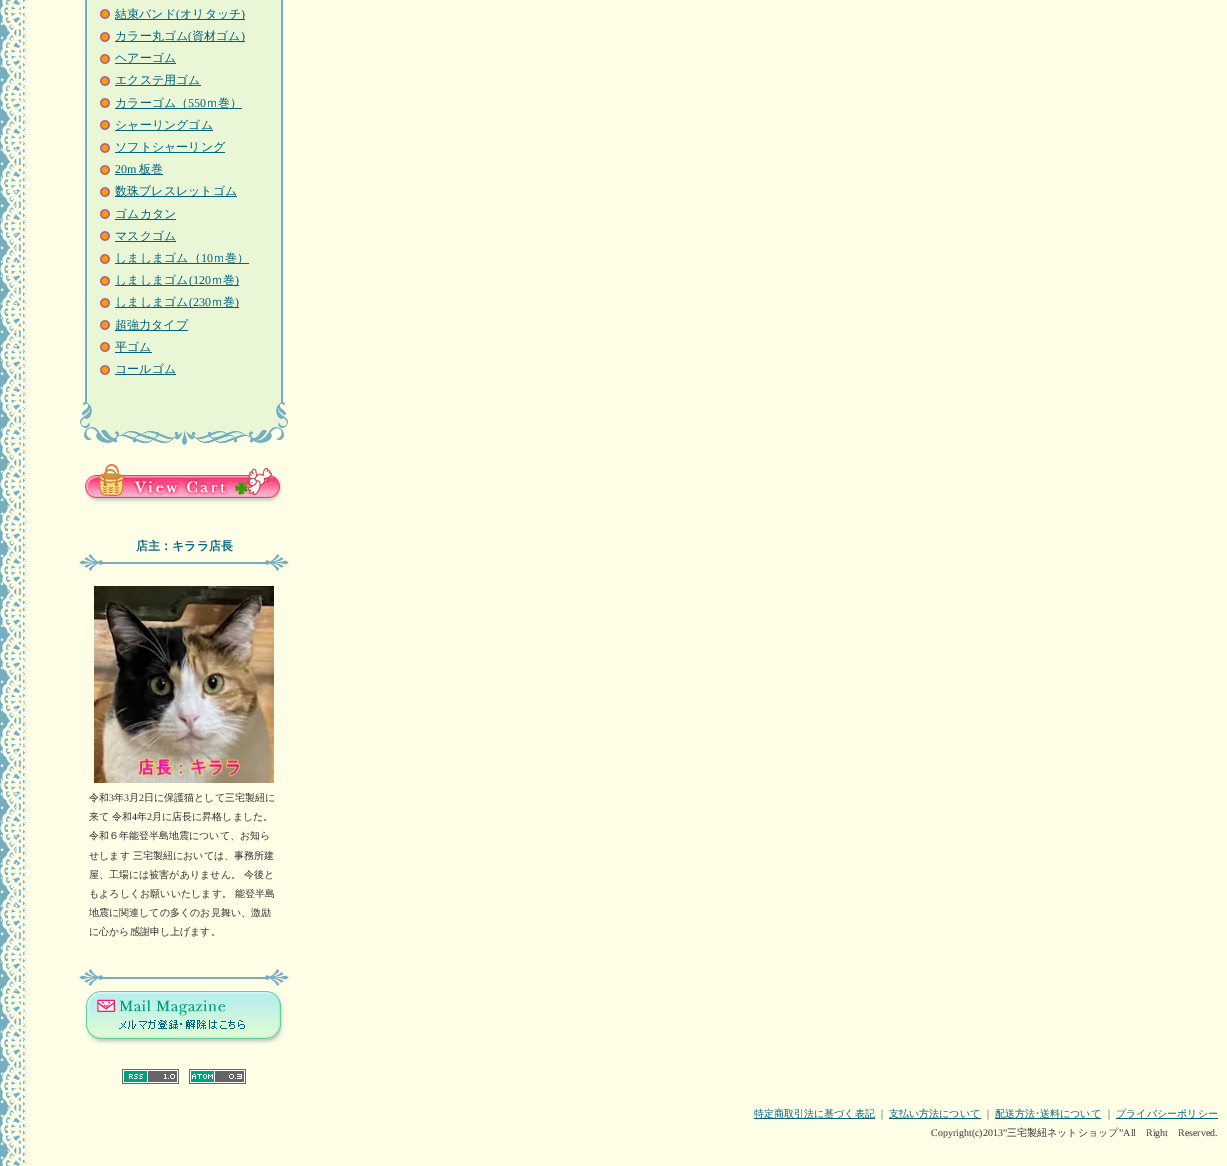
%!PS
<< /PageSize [1227 1166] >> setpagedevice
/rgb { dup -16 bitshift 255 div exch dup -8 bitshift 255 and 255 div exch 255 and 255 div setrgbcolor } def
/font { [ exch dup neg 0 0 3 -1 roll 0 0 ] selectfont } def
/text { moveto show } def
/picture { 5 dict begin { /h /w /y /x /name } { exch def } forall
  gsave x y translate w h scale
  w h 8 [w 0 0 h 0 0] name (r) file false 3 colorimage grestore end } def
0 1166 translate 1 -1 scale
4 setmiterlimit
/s1 { /WenQuanYiZenHei-Medium 12 font 16#006380 rgb } def
/s2 { /LiberationSerif-Regular 12 font 16#006380 rgb } def
/s3 { /WenQuanYiZenHei-Bold 12 font 16#006380 rgb } def
/s4 { /WenQuanYiZenHei-Medium 10 font 16#333333 rgb } def
/s5 { /LiberationSerif-Regular 10 font 16#333333 rgb } def
/s6 { /WenQuanYiZenHei-Medium 10 font 16#006380 rgb } def
/s7 { /IPAPGothic-Regular 10 font 16#006380 rgb } def
16#74AEBF rgb
0 0 1227 1166 rectfill
(pic1.raw) 0 1 24 1165 picture
(pic2.raw) 0 0 28 1166 picture
16#FFFFE7 rgb
28 0 1199 1166 rectfill
16#EAF7D6 rgb
87 0 194 402 rectfill
16#74AEBF rgb
281 0 2 402 rectfill
85 0 2 402 rectfill
(pic3.raw) 100 9 10 10 picture
16#006380 rgb
115 19 130 1 rectfill
s1
(結束バンド) 115 18 text
s2
(\() 176 18 text
s1
(オリタッチ) 180 18 text
s2
(\)) 241 18 text
(pic3.raw) 100 32 10 10 picture
115 41 130 1 rectfill
s1
(カラー丸ゴム) 115 40 text
s2
(\() 188 40 text
s1
(資材ゴム) 192 40 text
s2
(\)) 241 40 text
(pic3.raw) 100 54 10 10 picture
s1
(ヘアーゴム) 115 62 text
115 63 61 1 rectfill
(pic3.raw) 100 76 10 10 picture
115 85 86 1 rectfill
(エクステ用ゴム) 115 84 text
(pic3.raw) 100 98 10 10 picture
115 108 127 1 rectfill
(カラーゴム（) 115 107 text
s2
(550) 188 107 text
s1
(ｍ巻）) 206 107 text
(pic3.raw) 100 120 10 10 picture
115 130 98 1 rectfill
(シャーリングゴム) 115 129 text
(pic3.raw) 100 143 10 10 picture
115 152 110 1 rectfill
(ソフトシャーリング) 115 151 text
(pic3.raw) 100 165 10 10 picture
s2
(20m) 115 173 text
115 174 48 1 rectfill
s1
(板巻) 139 173 text
(pic3.raw) 100 187 10 10 picture
115 196 122 1 rectfill
(数珠ブレスレットゴム) 115 195 text
(pic3.raw) 100 209 10 10 picture
115 219 61 1 rectfill
(ゴムカタン) 115 218 text
(pic3.raw) 100 231 10 10 picture
115 241 61 1 rectfill
(マスクゴム) 115 240 text
(pic3.raw) 100 254 10 10 picture
115 263 134 1 rectfill
(しましまゴム（) 115 262 text
s2
(10) 201 262 text
s1
(ｍ巻）) 213 262 text
(pic3.raw) 100 276 10 10 picture
115 285 124 1 rectfill
(しましまゴム) 115 284 text
s2
(\(120) 189 284 text
s1
(ｍ巻) 211 284 text
s2
(\)) 235 284 text
(pic3.raw) 100 298 10 10 picture
115 307 124 1 rectfill
s1
(しましまゴム) 115 306 text
s2
(\(230) 189 306 text
s1
(ｍ巻) 211 306 text
s2
(\)) 235 306 text
(pic3.raw) 100 320 10 10 picture
115 330 73 1 rectfill
s1
(超強力タイプ) 115 329 text
(pic3.raw) 100 342 10 10 picture
115 352 37 1 rectfill
(平ゴム) 115 351 text
(pic3.raw) 100 365 10 10 picture
(コールゴム) 115 373 text
115 374 61 1 rectfill
(pic4.raw) 80 402 208 43 picture
(pic5.raw) 85 464 199 40 picture
(pic6.raw) 79 969 210 17 picture
(pic6.raw) 79 554 210 17 picture
s3
(店主：キララ店長) 136 550 text
(pic7.raw) 94 586 180 197 picture
s4
(令和) 89 801 text
s5
(3) 109 801 text
s4
(年) 114 801 text
s5
(3) 124 801 text
s4
(月) 129 801 text
s5
(2) 139 801 text
s4
(日に保護猫として三宅製紐に) 144 801 text
(来て 令和) 89 820 text
s5
(4) 132 820 text
s4
(年) 137 820 text
s5
(2) 147 820 text
s4
(月に店長に昇格しました。) 152 820 text
(令和６年能登半島地震について、お知ら) 89 839 text
(せします 三宅製紐においては、事務所建) 89 859 text
(屋、工場には被害がありません。 今後と) 89 878 text
(もよろしくお願いいたします。 能登半島) 89 897 text
(地震に関連しての多くのお見舞い、激励) 89 916 text
(に心から感謝申し上げます。) 89 935 text
(pic8.raw) 84 991 200 54 picture
(pic9.raw) 122 1069 57 15 picture
(pic10.raw) 189 1069 57 15 picture
16#006380 rgb
754 1118 121 1 rectfill
(特定商取引法に基づく表記) 754 1117 text
s4
(｜) 877 1117 text
16#006380 rgb
889 1118 92 1 rectfill
(支払い方法について) 889 1117 text
s4
(｜) 983 1117 text
16#006380 rgb
995 1118 106 1 rectfill
(配送方法) 995 1117 text
s7
(･) 1035 1117 text
s6
(送料について) 1040 1117 text
s4
(｜) 1104 1117 text
16#006380 rgb
1116 1118 102 1 rectfill
(プライバシーポリシー) 1116 1117 text
s5
(Copyright\(c\)2013”) 931 1136 text
s4
(三宅製紐ネットショップ) 1007 1136 text
s5
(”All) 1119 1136 text
(Right) 1146 1136 text
(Reserved.) 1178 1136 text
showpage
